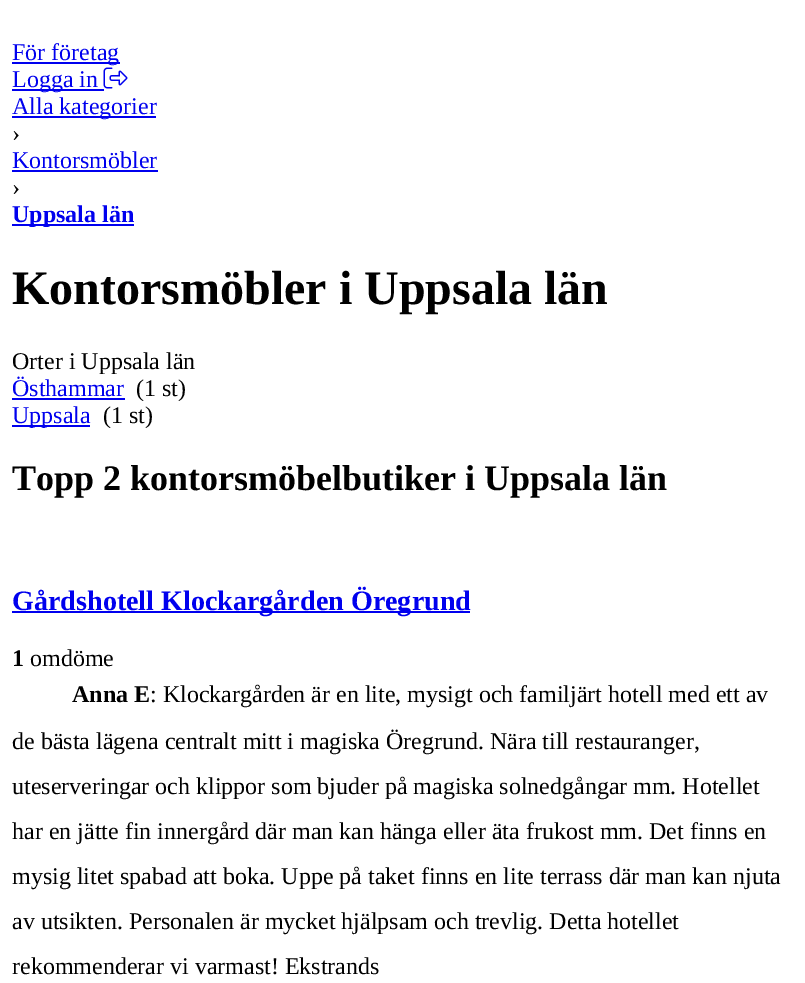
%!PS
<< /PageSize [805 983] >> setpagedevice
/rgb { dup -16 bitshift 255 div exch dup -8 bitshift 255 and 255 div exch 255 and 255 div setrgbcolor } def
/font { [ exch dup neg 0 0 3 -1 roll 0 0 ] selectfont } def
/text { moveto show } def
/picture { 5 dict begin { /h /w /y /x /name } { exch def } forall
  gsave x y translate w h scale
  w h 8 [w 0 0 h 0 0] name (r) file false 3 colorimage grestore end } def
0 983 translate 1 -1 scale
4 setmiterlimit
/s1 { /LiberationSerif-Regular 24 font 16#0000EE rgb } def
/s2 { /LiberationSerif-Regular 24 font 16#000000 rgb } def
/s3 { /LiberationSerif-Bold 24 font 16#0000EE rgb } def
/s4 { /LiberationSerif-Bold 48 font 16#000000 rgb } def
/s5 { /LiberationSerif-Bold 36 font 16#000000 rgb } def
/s6 { /LiberationSerif-Bold 28.1 font 16#0000EE rgb } def
/s7 { /LiberationSerif-Bold 24 font 16#000000 rgb } def
16#FFFFFF rgb
0 0 805 983 rectfill
16#0000EE rgb
12 62 108 2 rectfill
s1
(För företag) 12 60 text
12 89 92 2 rectfill
(Logga in) 12 87 text
(pic1.raw) 103 67 25 22 picture
12 116 144 2 rectfill
(Alla kategorier) 12 114 text
s2
(›) 12 141 text
s1
(Kontorsmöbler) 12 168 text
12 170 146 2 rectfill
s2
(›) 12 195 text
16#0000EE rgb
12 224 122 2 rectfill
s3
(Uppsala län) 12 222 text
s4
(Kontorsmöbler i Uppsala län) 12 304 text
s2
(Orter i Uppsala län) 12 369 text
s1
(Östhammar) 12 396 text
12 398 113 2 rectfill
s2
(\(1 st\)) 136 396 text
16#0000EE rgb
12 425 78 2 rectfill
(Uppsala) 12 423 text
s2
(\(1 st\)) 103 423 text
s5
(Topp 2 kontorsmöbelbutiker i Uppsala län) 12 490 text
16#0000EE rgb
12 611 458 2 rectfill
s6
(Gårdshotell Klockargården Öregrund) 12 610 text
s7
(1) 12 666 text
s2
(omdöme) 30 666 text
s7
(Anna E) 72 702 text
s2
(: Klockargården är en lite, mysigt och familjärt hotell med ett av) 150 702 text
(de bästa lägena centralt mitt i magiska Öregrund. Nära till restauranger,) 12 749 text
(uteserveringar och klippor som bjuder på magiska solnedgångar mm. Hotellet) 12 794 text
(har en jätte fin innergård där man kan hänga eller äta frukost mm. Det finns en) 12 839 text
(mysig litet spabad att boka. Uppe på taket finns en lite terrass där man kan njuta) 12 884 text
(av utsikten. Personalen är mycket hjälpsam och trevlig. Detta hotellet) 12 929 text
(rekommenderar vi varmast! Ekstrands) 12 974 text
showpage
